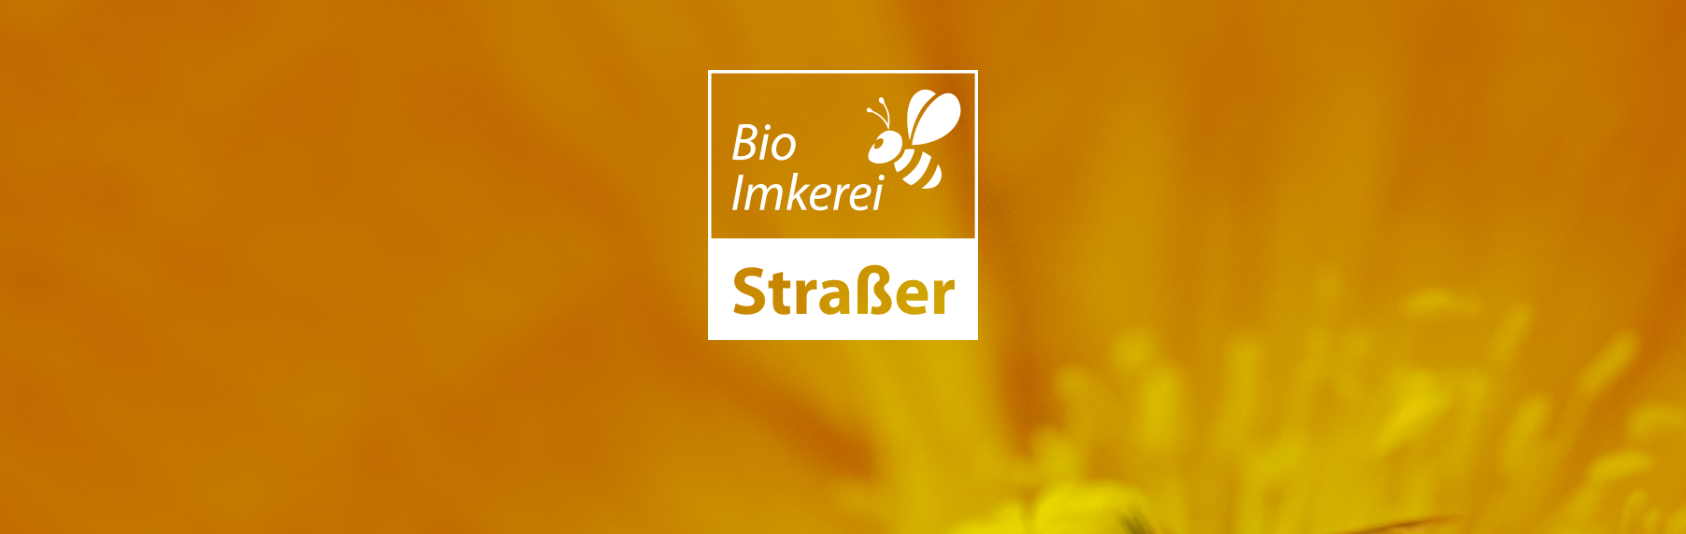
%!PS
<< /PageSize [1686 534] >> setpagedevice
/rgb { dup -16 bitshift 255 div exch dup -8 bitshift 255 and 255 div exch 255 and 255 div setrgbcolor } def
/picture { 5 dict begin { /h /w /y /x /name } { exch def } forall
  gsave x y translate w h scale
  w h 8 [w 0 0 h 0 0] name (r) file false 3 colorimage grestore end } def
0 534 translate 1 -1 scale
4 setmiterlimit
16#FFFFFF rgb
0 0 1686 534 rectfill
(pic1.raw) 0 0 1686 534 picture
(pic2.raw) 708 70 270 270 picture
showpage
